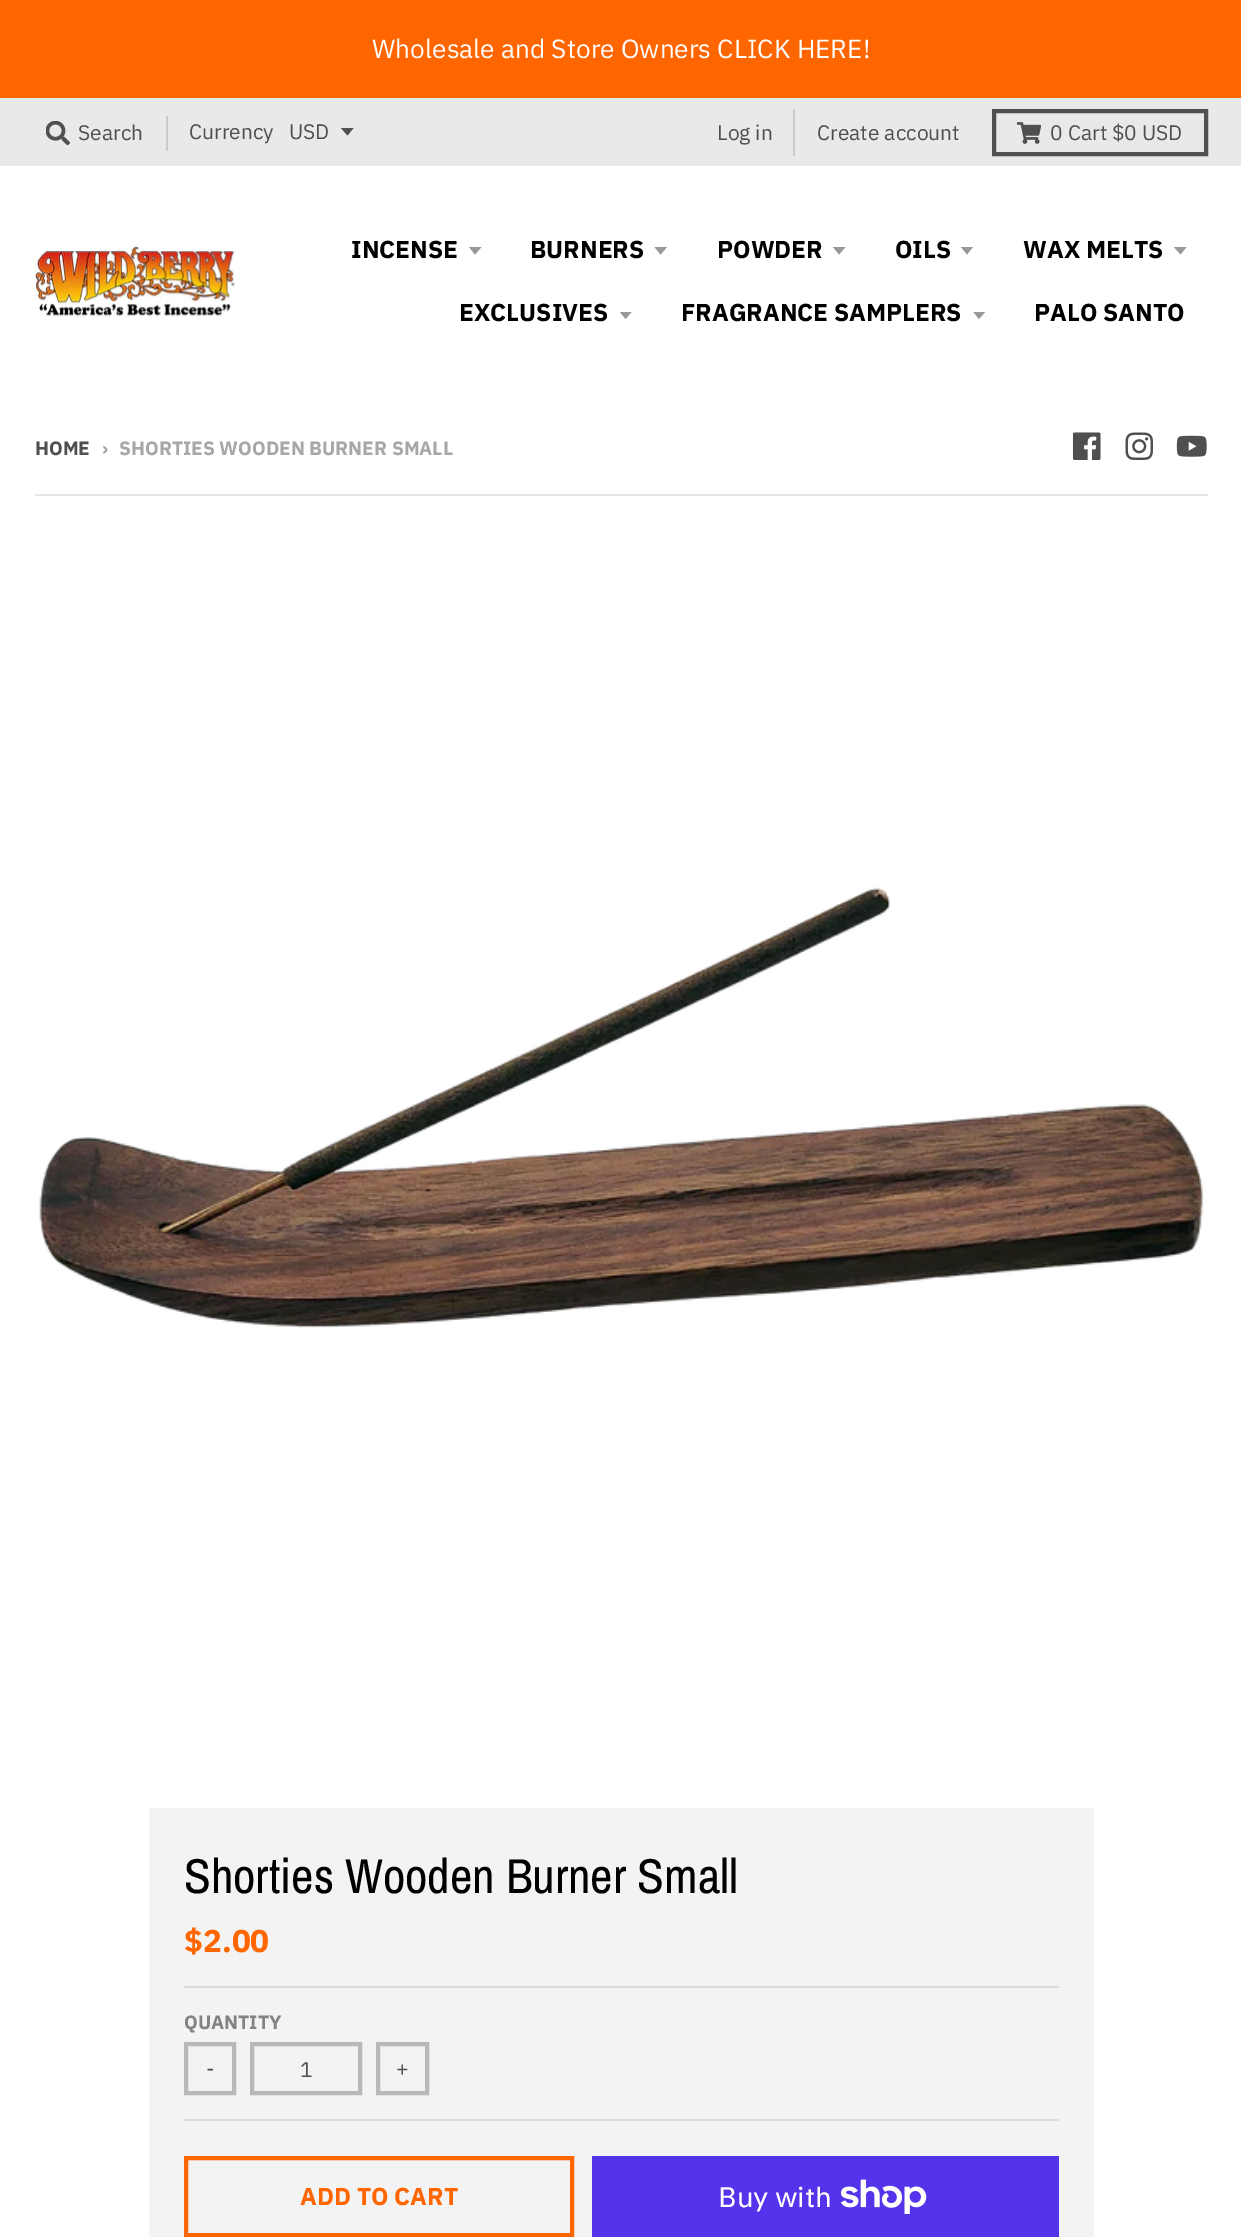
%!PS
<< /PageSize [1241 2237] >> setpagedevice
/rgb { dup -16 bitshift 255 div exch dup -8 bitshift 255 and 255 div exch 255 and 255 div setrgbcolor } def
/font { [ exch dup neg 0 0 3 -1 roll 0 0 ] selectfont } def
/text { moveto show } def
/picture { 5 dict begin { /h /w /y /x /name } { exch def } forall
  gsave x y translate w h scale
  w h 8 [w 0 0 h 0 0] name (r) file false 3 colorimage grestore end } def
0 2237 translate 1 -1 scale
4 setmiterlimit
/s1 { /IBMPlexSans-Regular 26.25 font 16#FFFFFF rgb } def
/s2 { /IBMPlexSans-Regular 21 font 16#4F4F4F rgb } def
/s3 { /IBMPlexSans-Bold 24.5 font 16#000000 rgb } def
/s4 { /IBMPlexSans-Bold 19.25 font 16#4F4F4F rgb } def
/s5 { /IBMPlexSans-Bold 19.25 font 16#A7A7A7 rgb } def
/s6 { /ArchivoNarrow-Regular 49 font 16#000000 rgb } def
/s7 { /IBMPlexSans-Bold 31.5 font 16#FF6600 rgb } def
/s8 { /IBMPlexSans-Bold 19.25 font 16#838383 rgb } def
/s9 { /IBMPlexSans-Bold 24.5 font 16#FF6600 rgb } def
/s10 { /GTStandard-Regular 28 font 16#FFFFFF rgb } def
16#FFFFFF rgb
0 0 1241 2237 rectfill
16#FF6600 rgb
0 0 1241 98 rectfill
s1
(Wholesale and Store Owners CLICK HERE!) 372 58 text
16#E9E9E9 rgb
0 98 1241 68 rectfill
(pic1.raw) 46 121 24 24 picture
s2
(Search) 78 140 text
16#CACACA rgb
166 116 2 35 rectfill
s2
(Currency) 189 139 text
16#505050 rgb
341 128 moveto 347.5 135.5 lineto 353.5 128 lineto closepath fill
s2
(USD) 289 139 text
16#CACACA rgb
793 109 2 47 rectfill
s2
(Log in) 717 140 text
(Create account) 817 140 text
16#505050 rgb
4 setlinewidth
994 111 212 43 rectstroke
(pic2.raw) 1017 122 24 22 picture
s2
(0 Cart $0 USD) 1050 140 text
(pic3.raw) 35 244 200 73 picture
s3
(INCENSE) 351 258 text
16#999999 rgb
469 247 moveto 475 254.5 lineto 481.5 247 lineto closepath fill
s3
(BURNERS) 530 258 text
16#999999 rgb
654.5 247 moveto 660.5 254.5 lineto 667 247 lineto closepath fill
s3
(POWDER) 717 258 text
16#999999 rgb
833 247 moveto 839 254.5 lineto 845.5 247 lineto closepath fill
s3
(OILS) 895 258 text
16#999999 rgb
961 247 moveto 967 254.5 lineto 973 247 lineto closepath fill
s3
(WAX MELTS) 1023 258 text
16#999999 rgb
1174 247 moveto 1180.5 254.5 lineto 1186.5 247 lineto closepath fill
s3
(EXCLUSIVES) 459 321 text
gsave
620 312 14 8 rectclip
16#999999 rgb
619.5 311.5 moveto 625.5 319 lineto 632 311.5 lineto closepath fill
grestore
(FRAGRANCE SAMPLERS) 681 321 text
gsave
973 312 14 8 rectclip
16#999999 rgb
973 311.5 moveto 979 319 lineto 985.5 311.5 lineto closepath fill
grestore
(PALO SANTO) 1034 321 text
s4
(HOME) 35 455 text
s5
(›) 102 455 text
(SHORTIES WOODEN BURNER SMALL) 119 455 text
(pic4.raw) 1072 432 29 28 picture
(pic5.raw) 1125 432 29 28 picture
(pic6.raw) 1176 435 31 22 picture
16#E5E5E5 rgb
35 494 1173 2 rectfill
(pic7.raw) 39 887 1164 441 picture
16#F3F3F3 rgb
149 1808 945 429 rectfill
s6
(Shorties Wooden Burner Small) 184 1893 text
16#DADADA rgb
184 1986 875 2 rectfill
s7
($2.00) 184 1952 text
16#DADADA rgb
184 2119 875 2 rectfill
s8
(QUANTITY) 184 2029 text
16#B8B8B8 rgb
186 2044 48 49 rectstroke
s2
(-) 206 2076 text
16#B8B8B8 rgb
252 2044 108 49 rectstroke
s2
(1) 300 2077 text
16#B8B8B8 rgb
378 2044 49 49 rectstroke
s2
(+) 396 2076 text
16#FF6600 rgb
186 2158 386 77 rectstroke
s9
(ADD TO CART) 300 2205 text
16#5433EB rgb
592 2156 467 81 rectfill
s10
(Buy with) 718 2207 text
(pic8.raw) 841 2179 86 35 picture
showpage
